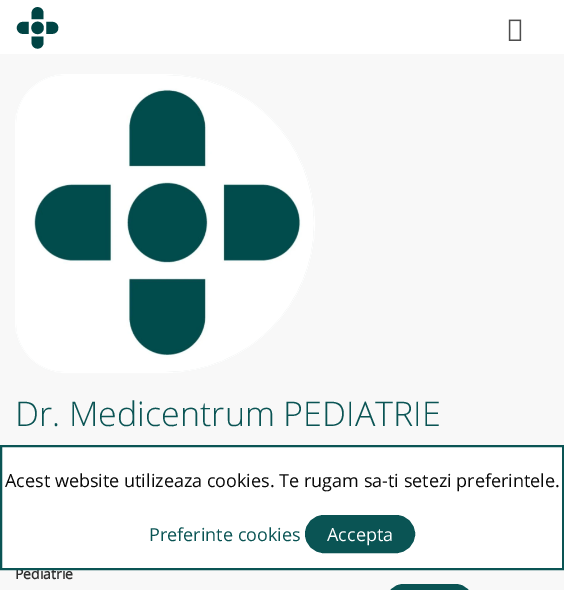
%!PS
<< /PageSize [564 590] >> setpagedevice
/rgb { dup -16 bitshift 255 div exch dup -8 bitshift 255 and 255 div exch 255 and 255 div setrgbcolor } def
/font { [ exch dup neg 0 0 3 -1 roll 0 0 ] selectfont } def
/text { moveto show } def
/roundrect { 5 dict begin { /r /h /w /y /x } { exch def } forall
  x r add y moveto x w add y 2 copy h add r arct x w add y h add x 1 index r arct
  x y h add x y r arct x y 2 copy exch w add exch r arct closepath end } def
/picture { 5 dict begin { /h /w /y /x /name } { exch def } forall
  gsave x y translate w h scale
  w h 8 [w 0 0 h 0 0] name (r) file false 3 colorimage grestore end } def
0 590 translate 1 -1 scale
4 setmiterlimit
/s1 { /OpenSans-Light 34 font 16#0A5454 rgb } def
/s2 { /OpenSans-Bold 14 font 16#303030 rgb } def
/s3 { /OpenSans-Regular 18 font 16#080808 rgb } def
/s4 { /OpenSans-Regular 18 font 16#0A5454 rgb } def
/s5 { /OpenSans-Regular 18 font 16#FFFFFF rgb } def
16#FFFFFF rgb
0 0 564 590 rectfill
(pic1.raw) 16 7 43 42 picture
(pic2.raw) 508 19 14 22 picture
16#F8F8F8 rgb
0 54 564 536 rectfill
16#E7EAEA rgb
65 74.5 moveto 165.5 74.5 lineto 248 74.5 314.5 141 314.5 223.5 curveto 314.5 306 248 372.5 165.5 372.5 curveto 65 372.5 lineto 37.5 372.5 15.5 350.5 15.5 323 curveto 15.5 124 lineto 15.5 96.5 37.5 74.5 65 74.5 curveto closepath gsave fill grestore
16#FFFFFF rgb
stroke
(pic3.raw) 16 75 298 297 picture
s1
(Dr. Medicentrum PEDIATRIE) 15 426 text
s2
(Pediatrie) 15 579 text
16#0A5454 rgb
387 585 85 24 16.5 roundrect gsave fill grestore
2 setlinewidth
stroke
16#FFFFFF rgb
1 446 moveto 563 446 lineto 563 569 lineto 1 569 lineto closepath gsave fill grestore
16#0A5454 rgb
stroke
s3
(Acest website utilizeaza cookies. Te rugam sa-ti setezi preferintele.) 5 487 text
s4
(Preferinte cookies) 149 541 text
306 516 108 36 18 roundrect gsave fill grestore
stroke
s5
(Accepta) 327 541 text
showpage
